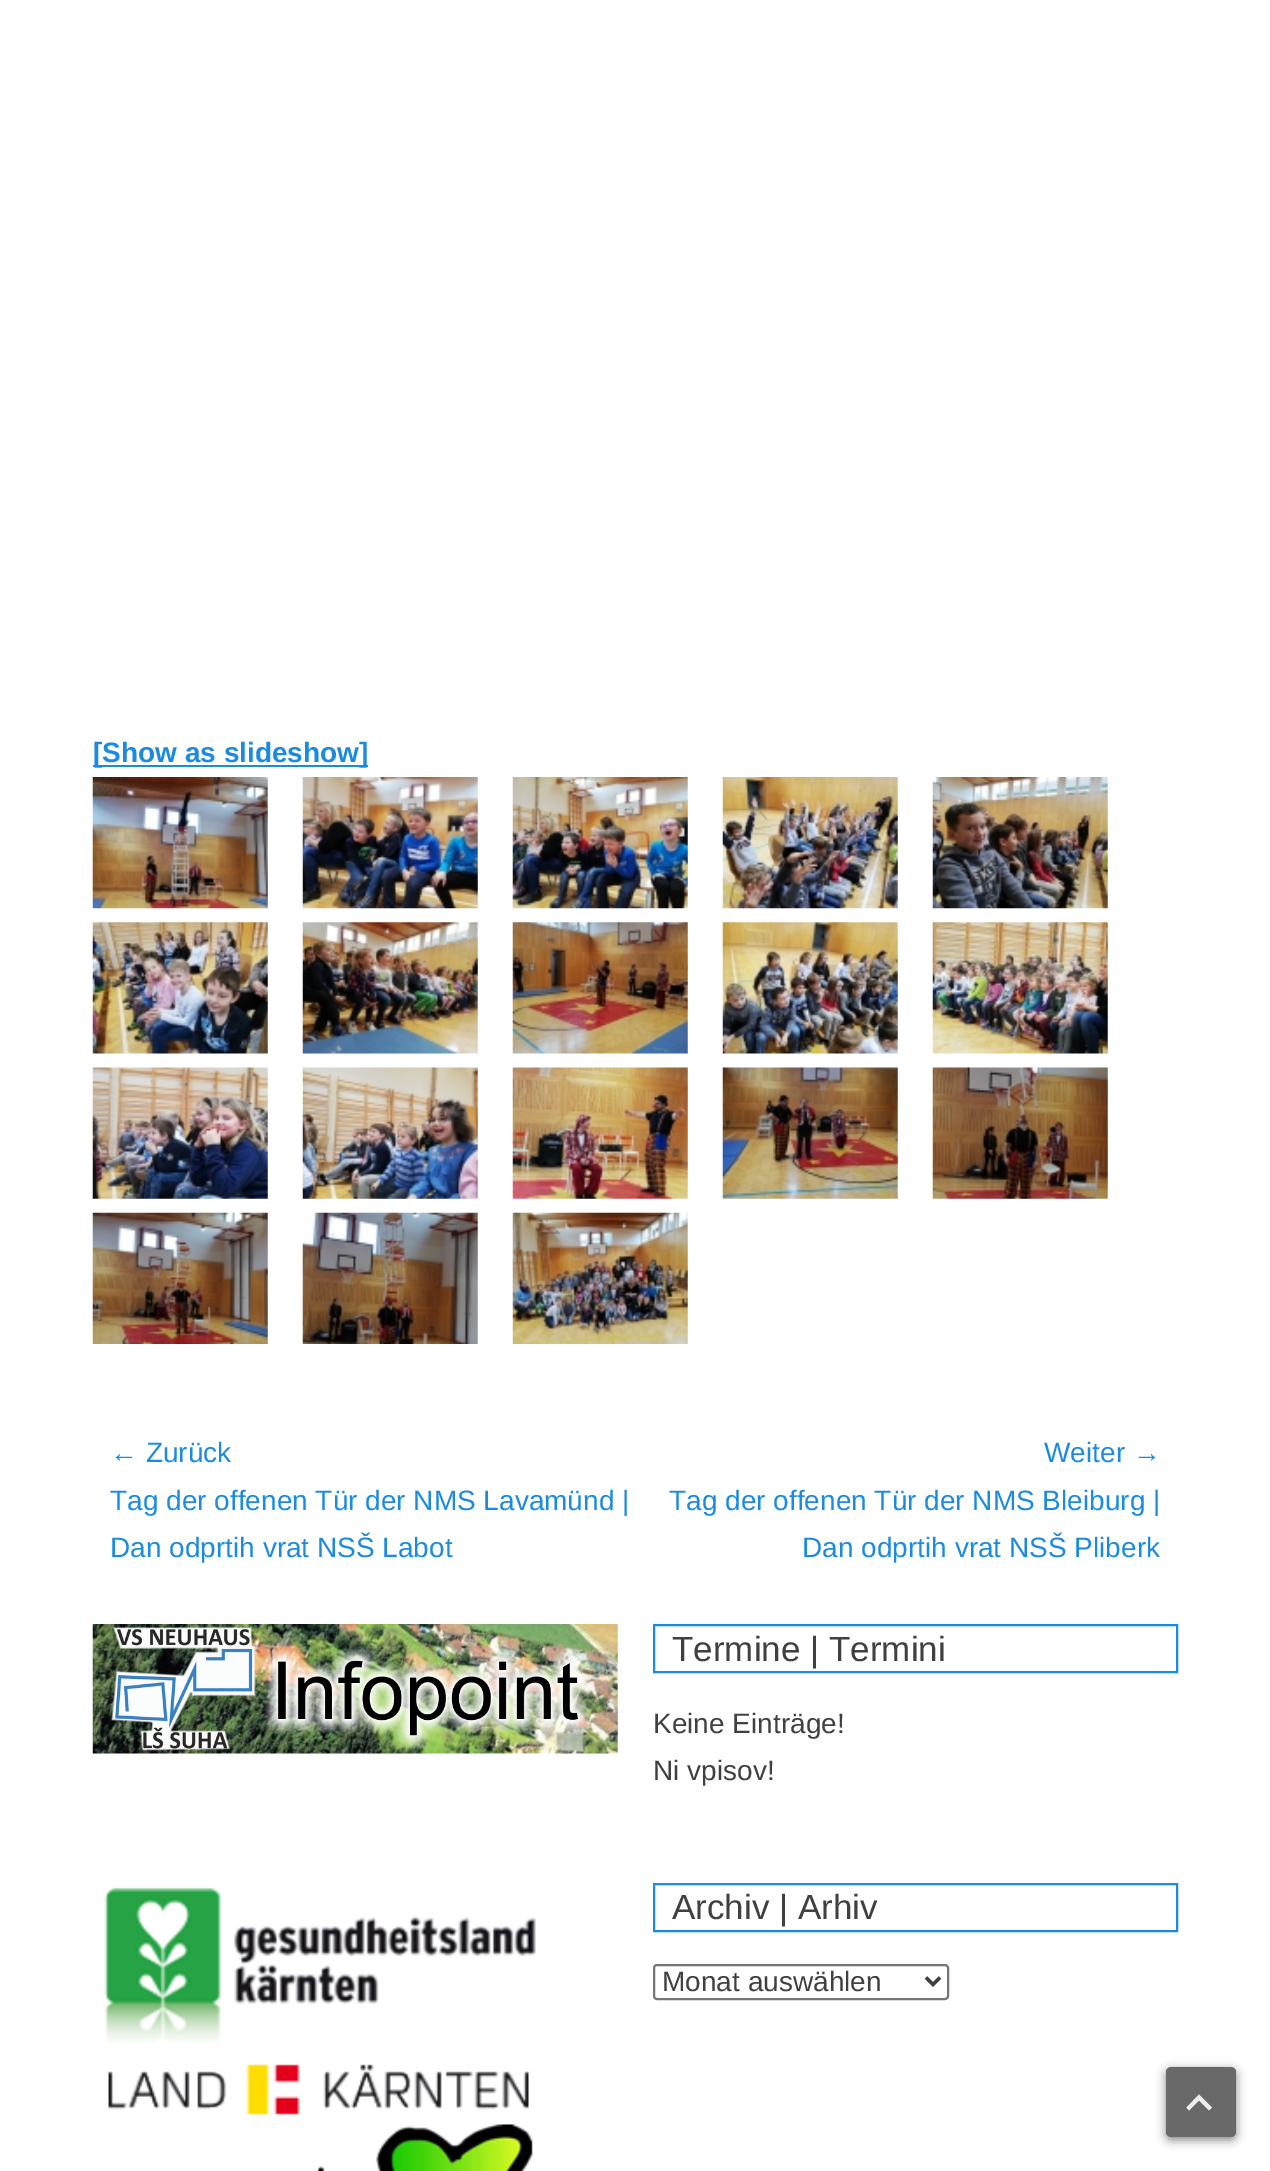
%!PS
<< /PageSize [1270 2171] /PageUsesTransparency true >> setpagedevice
/rgb { dup -16 bitshift 255 div exch dup -8 bitshift 255 and 255 div exch 255 and 255 div setrgbcolor } def
/font { [ exch dup neg 0 0 3 -1 roll 0 0 ] selectfont } def
/text { moveto show } def
/alpha { dup .setfillconstantalpha .setstrokeconstantalpha } def
/roundrect { 5 dict begin { /r /h /w /y /x } { exch def } forall
  x r add y moveto x w add y 2 copy h add r arct x w add y h add x 1 index r arct
  x y h add x y r arct x y 2 copy exch w add exch r arct closepath end } def
/shadow { 12 dict begin { /a /b /q /h /w /y /x } { exch def } forall gsave /was 0 def
  9 -2 -9 { dup b mul 4 div /e exch def 1 sub .425 mul 2.718 exch exp 1 add a .99 .min exch div /now exch def
    1 1 now sub 1 was sub div sub alpha /was now def
    w h .min e 2 mul add 0 gt { x e sub y e sub w e 2 mul add h e 2 mul add
      q e add b .6 mul add w h .min 2 div e add .min 0 .max roundrect fill } if } for grestore end } def
/picture { 5 dict begin { /h /w /y /x /name } { exch def } forall
  gsave x y translate w h scale
  w h 8 [w 0 0 h 0 0] name (r) file false 3 colorimage grestore end } def
0 .pushpdf14devicefilter
0 2171 translate 1 -1 scale
4 setmiterlimit
/s1 { /LiberationSans-Bold 28 font 16#1B8BE0 rgb } def
/s2 { /LiberationSans-Regular 28 font 16#1B8BE0 rgb } def
/s3 { /LiberationSans-Regular 35 font 16#404040 rgb } def
/s4 { /LiberationSans-Regular 28 font 16#404040 rgb } def
16#FFFFFF rgb
0 0 1270 2171 rectfill
16#1B8BE0 rgb
93 765 275 2 rectfill
s1
([Show as slideshow]) 93 762 text
(pic1.raw) 92 777 176 132 picture
(pic2.raw) 302 777 176 132 picture
(pic3.raw) 512 777 176 132 picture
(pic4.raw) 722 777 176 132 picture
(pic5.raw) 932 777 176 132 picture
(pic6.raw) 92 922 176 132 picture
(pic7.raw) 302 922 176 132 picture
(pic8.raw) 512 922 176 132 picture
(pic9.raw) 722 922 176 132 picture
(pic10.raw) 932 922 176 132 picture
(pic11.raw) 92 1067 176 132 picture
(pic12.raw) 302 1067 176 132 picture
(pic13.raw) 512 1067 176 132 picture
(pic14.raw) 722 1067 176 132 picture
(pic15.raw) 932 1067 176 132 picture
(pic16.raw) 92 1212 176 132 picture
(pic17.raw) 302 1212 176 132 picture
(pic18.raw) 512 1212 176 132 picture
s2
(← Zurück) 110 1462 text
(Tag der offenen Tür der NMS Lavamünd |) 110 1510 text
(Dan odprtih vrat NSŠ Labot) 110 1557 text
(Weiter →) 1044 1462 text
(Tag der offenen Tür der NMS Bleiburg |) 669 1510 text
(Dan odprtih vrat NSŠ Pliberk) 802 1557 text
(pic19.raw) 92 1624 526 130 picture
2 setlinewidth
654 1625 523 47 rectstroke
s3
(Termine | Termini) 672 1661 text
s4
(Keine Einträge!) 653 1733 text
(Ni vpisov!) 653 1780 text
(pic20.raw) 104 1887 432 284 picture
16#1B8BE0 rgb
654 1884 523 47 rectstroke
s3
(Archiv | Arhiv) 672 1919 text
16#767676 rgb
654 1965 294 34 3 roundrect stroke
16#404040 rgb
3.5 setlinewidth
926 1977.5 moveto 933 1984.5 lineto 940 1977.5 lineto stroke
s4
(Monat auswählen) 662 1991 text
16#050505 rgb
1166 2070 70 70 5 5 0.5 shadow
16#696969 rgb
1166 2067 70 70 5 roundrect fill
16#EEEEEE rgb
1209 2110.5 moveto 1199 2100.5 lineto 1189 2110.5 lineto 1186.5 2107.5 lineto 1199 2094.5 lineto 1212 2107.5 lineto closepath fill
.poppdf14devicefilter showpage
